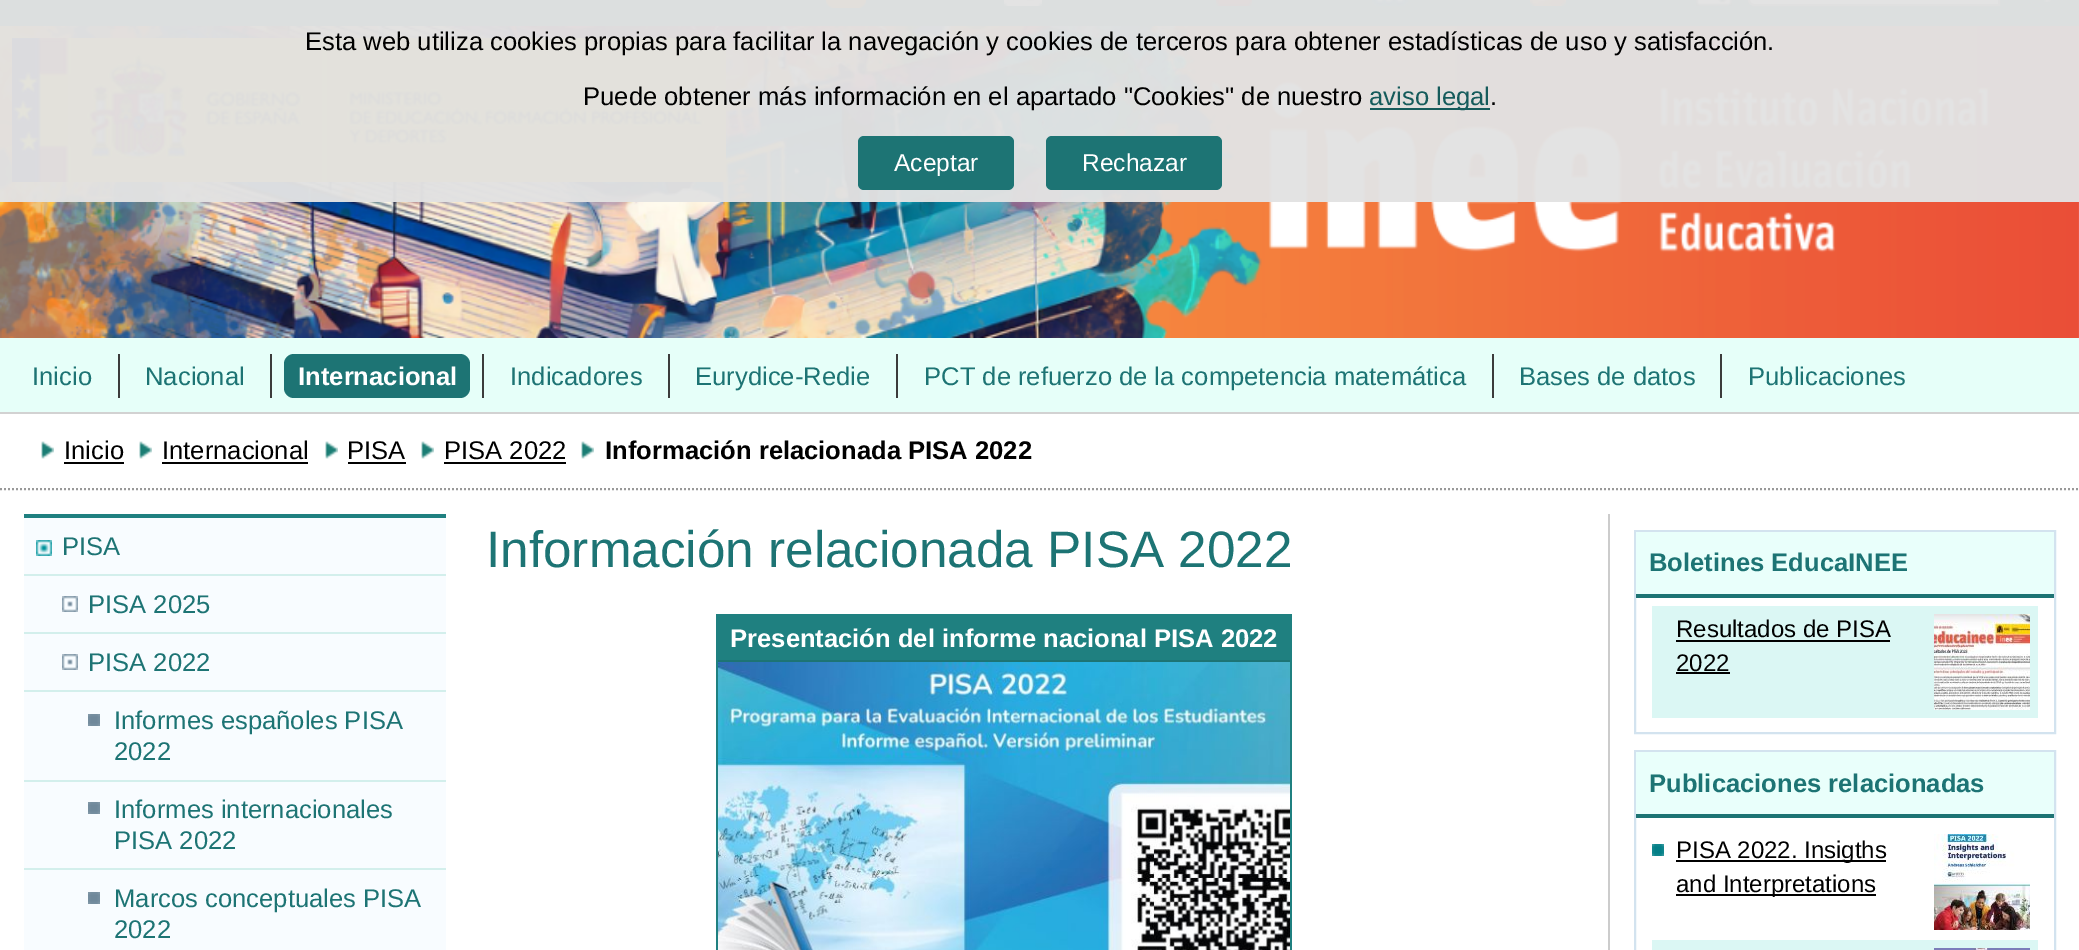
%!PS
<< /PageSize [2079 950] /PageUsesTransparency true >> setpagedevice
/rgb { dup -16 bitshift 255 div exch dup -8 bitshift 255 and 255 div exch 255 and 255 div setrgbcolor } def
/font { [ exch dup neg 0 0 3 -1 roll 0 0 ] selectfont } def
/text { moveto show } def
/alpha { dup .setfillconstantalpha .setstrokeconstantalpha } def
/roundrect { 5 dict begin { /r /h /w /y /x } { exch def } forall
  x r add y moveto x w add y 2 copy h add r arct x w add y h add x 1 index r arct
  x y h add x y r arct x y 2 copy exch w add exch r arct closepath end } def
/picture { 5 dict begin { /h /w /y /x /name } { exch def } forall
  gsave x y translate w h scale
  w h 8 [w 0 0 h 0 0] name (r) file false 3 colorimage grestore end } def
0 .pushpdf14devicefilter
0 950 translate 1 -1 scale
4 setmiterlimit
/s1 { /LiberationSans-Regular 25.6 font 16#000000 rgb } def
/s2 { /LiberationSans-Regular 25.6 font 16#155B5B rgb } def
/s3 { /LiberationSans-Regular 24.5 font 16#FFFFFF rgb } def
/s4 { /LiberationSans-Regular 25.6 font 16#1D7474 rgb } def
/s5 { /LiberationSans-Bold 25.6 font 16#FFFFFF rgb } def
/s6 { /LiberationSans-Bold 25.6 font 16#000000 rgb } def
/s7 { /LiberationSans-Regular 51.25 font 16#1D7474 rgb } def
/s8 { /LiberationSans-Bold 25.6 font 16#1D7474 rgb } def
/s9 { /LiberationSans-Regular 24 font 16#000000 rgb } def
16#FFFFFF rgb
0 0 2079 950 rectfill
16#1F8080 rgb
0 0 2079 26 rectfill
(pic1.raw) 826 0 40 8 picture
(pic2.raw) 1004 0 38 6 picture
(pic3.raw) 1216 0 36 6 picture
(pic4.raw) 1372 0 36 6 picture
(pic5.raw) 1530 0 36 6 picture
(pic6.raw) 1696 0 36 6 picture
16#FFFFFF rgb
1754 -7 moveto 1999 -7 lineto 1999 5 lineto 1754 5 lineto 1751 5 1749 3 1749 0 curveto 1749 -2 lineto 1749 -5 1751 -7 1754 -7 curveto closepath gsave fill grestore
16#989898 rgb
2 setlinewidth
stroke
(pic7.raw) 2043 0 9 2 picture
(pic8.raw) 0 26 2079 312 picture
(pic9.raw) 12 38 714 144 picture
0.97 alpha
16#E2E2E2 rgb
0 0 2079 202 rectfill
1 alpha
s1
(Esta web utiliza cookies propias para facilitar la navegación y cookies de terceros para obtener estadísticas de uso y satisfacción.) 305 50 text
(Puede obtener más información en el apartado "Cookies" de nuestro) 583 105 text
16#155B5B rgb
1370 108 120 2 rectfill
(aviso legal) 1369 105 text
s1
(.) 1490 105 text
16#1D7474 rgb
858 136 156 54 6 roundrect fill
s3
(Aceptar) 894 171 text
16#1D7474 rgb
1046 136 176 54 6 roundrect fill
s3
(Rechazar) 1082 171 text
16#E6FFF9 rgb
0 338 2079 74 rectfill
16#D2D2D2 rgb
0 412 2079 2 rectfill
s4
(Inicio) 32 385 text
16#3C3C3C rgb
118 354 2 44 rectfill
s4
(Nacional) 145 385 text
16#3C3C3C rgb
270 354 2 44 rectfill
16#1D7474 rgb
284 354 186 44 10 roundrect fill
s5
(Internacional) 298 385 text
16#3C3C3C rgb
482 354 2 44 rectfill
s4
(Indicadores) 510 385 text
16#3C3C3C rgb
668 354 2 44 rectfill
s4
(Eurydice-Redie) 695 385 text
16#3C3C3C rgb
896 354 2 44 rectfill
s4
(PCT de refuerzo de la competencia matemática) 924 385 text
16#3C3C3C rgb
1492 354 2 44 rectfill
s4
(Bases de datos) 1519 385 text
16#3C3C3C rgb
1720 354 2 44 rectfill
s4
(Publicaciones) 1748 385 text
16#999999 rgb
[2 2] 0 setdash
0 489 moveto 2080 489 lineto stroke
(pic10.raw) 41 441 13 18 picture
s1
(Inicio) 64 459 text
64 462 60 2 rectfill
(pic10.raw) 139 441 13 18 picture
(Internacional) 162 459 text
162 462 146 2 rectfill
(pic10.raw) 325 441 13 18 picture
(PISA) 347 459 text
348 462 58 2 rectfill
(pic10.raw) 421 441 13 18 picture
(PISA 2022) 444 459 text
444 462 122 2 rectfill
(pic10.raw) 581 441 13 18 picture
s6
(Información relacionada PISA 2022) 605 459 text
16#1F8080 rgb
24 514 422 4 rectfill
16#F8FCFF rgb
24 518 422 432 rectfill
(pic11.raw) 36 540 16 16 picture
16#D3EFEC rgb
24 574 422 2 rectfill
s4
(PISA) 62 555 text
(pic12.raw) 62 596 16 16 picture
16#D3EFEC rgb
24 632 422 2 rectfill
s4
(PISA 2025) 88 613 text
(pic12.raw) 62 654 16 16 picture
16#D3EFEC rgb
24 690 422 2 rectfill
s4
(PISA 2022) 88 671 text
(pic13.raw) 88 714 12 12 picture
16#D3EFEC rgb
24 780 422 2 rectfill
s4
(Informes españoles PISA) 114 729 text
(2022) 114 760 text
(pic13.raw) 88 802 12 12 picture
16#D3EFEC rgb
24 868 422 2 rectfill
s4
(Informes internacionales) 114 818 text
(PISA 2022) 114 849 text
(pic13.raw) 88 892 12 12 picture
(Marcos conceptuales PISA) 114 907 text
(2022) 114 938 text
s7
(Información relacionada PISA 2022) 486 567 text
16#1F8080 rgb
716 614 576 46 rectfill
s5
(Presentación del informe nacional PISA 2022) 730 647 text
16#1D7474 rgb
716 660 576 2 rectfill
16#1F8080 rgb
716 660 2 290 rectfill
(pic14.raw) 718 662 572 288 picture
1290 660 2 290 rectfill
16#CCCCCC rgb
1608 514 2 436 rectfill
16#D3E3EF rgb
[] 0 setdash
1635 531 420 202 rectstroke
16#E9FFFB rgb
1636 532 418 62 rectfill
16#1D7474 rgb
1636 594 418 4 rectfill
(Boletines EducaINEE) 1649 571 text
16#DBF7F4 rgb
1652 606 386 112 rectfill
s9
(Resultados de PISA) 1676 637 text
1676 640 214 2 rectfill
(2022) 1676 671 text
1676 672 54 2 rectfill
(pic15.raw) 1934 614 96 96 picture
16#D3E3EF rgb
1635 751 420 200 rectstroke
16#E9FFFB rgb
1636 752 418 62 rectfill
16#1D7474 rgb
1636 814 418 4 rectfill
s8
(Publicaciones relacionadas) 1649 792 text
(pic16.raw) 1652 844 12 12 picture
16#000000 rgb
1676 860 210 2 rectfill
s9
(PISA 2022. Insigths) 1676 858 text
1676 894 200 2 rectfill
(and Interpretations) 1676 892 text
(pic17.raw) 1934 834 96 96 picture
16#DBF7F4 rgb
1652 940 386 10 rectfill
(pic18.raw) 1934 948 96 2 picture
.poppdf14devicefilter showpage
